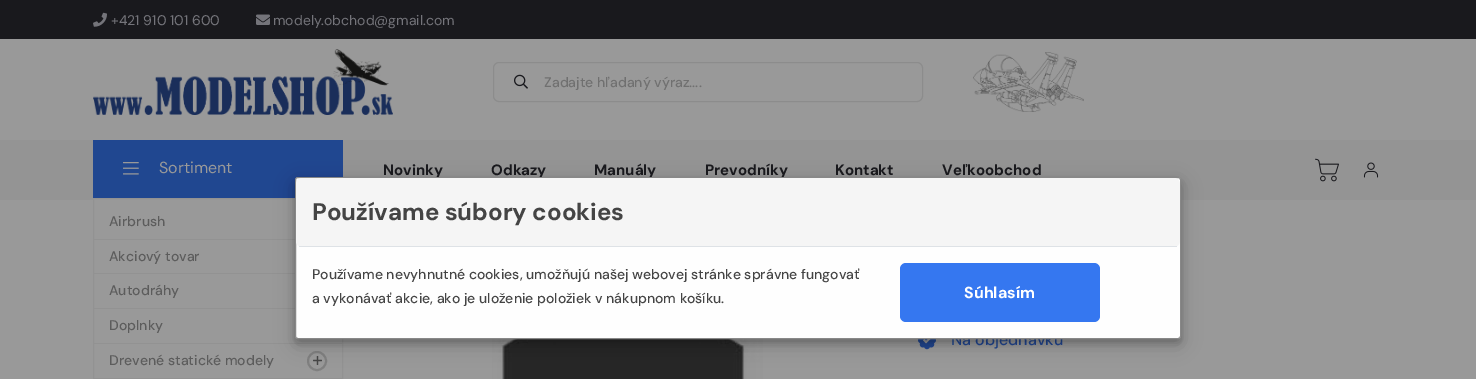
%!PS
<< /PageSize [1476 379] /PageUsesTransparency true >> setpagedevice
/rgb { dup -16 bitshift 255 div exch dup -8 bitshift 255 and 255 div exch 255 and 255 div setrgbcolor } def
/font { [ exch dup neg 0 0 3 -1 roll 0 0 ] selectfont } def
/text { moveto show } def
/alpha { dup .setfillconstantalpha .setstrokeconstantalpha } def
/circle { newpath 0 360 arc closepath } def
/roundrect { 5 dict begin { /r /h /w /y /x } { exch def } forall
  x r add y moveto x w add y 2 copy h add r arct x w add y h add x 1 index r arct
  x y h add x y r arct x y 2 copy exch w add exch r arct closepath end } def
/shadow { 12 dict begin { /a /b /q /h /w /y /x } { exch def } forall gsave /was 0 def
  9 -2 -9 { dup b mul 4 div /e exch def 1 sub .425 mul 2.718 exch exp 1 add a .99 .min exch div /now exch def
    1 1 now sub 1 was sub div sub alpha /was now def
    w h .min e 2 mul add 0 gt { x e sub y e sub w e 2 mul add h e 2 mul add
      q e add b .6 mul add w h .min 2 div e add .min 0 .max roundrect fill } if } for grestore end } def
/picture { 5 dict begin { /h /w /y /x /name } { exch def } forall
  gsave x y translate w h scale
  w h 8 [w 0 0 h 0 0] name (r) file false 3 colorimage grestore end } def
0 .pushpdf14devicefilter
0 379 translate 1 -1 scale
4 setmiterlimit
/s1 { /DMSans-Regular 14 font 16#74747A rgb } def
/s2 { /DMSans-Medium 14 font 16#707070 rgb } def
/s3 { /DMSans-Bold 15 font 16#19191D rgb } def
/s4 { /DMSans-Regular 16 font 16#999999 rgb } def
/s5 { /DMSans-Medium 14 font 16#5C5C5C rgb } def
/s6 { /DMSans-Medium 16 font 16#204790 rgb } def
/s7 { /DMSans-Bold 24 font 16#444444 rgb } def
/s8 { /DMSans-Medium 14 font 16#444444 rgb } def
/s9 { /DMSans-Bold 16 font 16#FFFFFF rgb } def
16#999999 rgb
0 0 1476 379 rectfill
16#19191D rgb
0 0 1476 39 rectfill
(pic1.raw) 93 12 14 15 picture
s1
(+421 910 101 600) 111 25 text
(pic2.raw) 256 14 14 11 picture
(modely.obchod@gmail.com) 273 25 text
(pic3.raw) 93 49 300 66 picture
16#8C8C8C rgb
493.5 62.5 429 39 5.5 roundrect stroke
(pic4.raw) 514 74 14 15 picture
s2
(Zadajte hľadaný výraz....) 544 87 text
(pic5.raw) 973 52 111 60 picture
16#949494 rgb
0 140 1476 60 rectfill
s3
(Novinky) 383 175 text
(Odkazy) 491 175 text
(Manuály) 594 175 text
(Prevodníky) 705 175 text
(Kontakt) 835 175 text
(Veľkoobchod) 942 175 text
(pic6.raw) 1315 158 24 24 picture
(pic7.raw) 1363 162 16 16 picture
16#204790 rgb
93 140 250 58 rectfill
(pic8.raw) 123 162 16 13 picture
s4
(Sortiment) 159 173 text
94 199 248 1 rectfill
16#929292 rgb
93.5 198.5 249 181 rectstroke
94 239 201 1 rectfill
s5
(Airbrush) 109 226 text
16#929292 rgb
94 273 201 1 rectfill
s5
(Akciový tovar) 109 261 text
16#929292 rgb
94 308 201 1 rectfill
s5
(Autodráhy) 109 295 text
16#929292 rgb
94 343 248 1 rectfill
s5
(Doplnky) 109 330 text
16#929292 rgb
94 378 248 1 rectfill
s5
(Drevené statické modely) 109 365 text
16#808080 rgb
2 setlinewidth
317 361 9 circle stroke
(pic9.raw) 313 356 9 9 picture
(pic10.raw) 492 339 271 40 picture
(pic11.raw) 918 339 18 11 picture
s6
(Na objednávku) 951 345 text
16#000000 rgb
295 183 886 162 3 10 0.19 shadow
295 181 886 162 3 4 0.2 shadow
16#FEFEFE rgb
295.5 177.5 885 161 2.5 roundrect gsave fill grestore
16#888888 rgb
1 setlinewidth
stroke
16#F5F5F5 rgb
296 178 884 69 6 roundrect fill
16#DEE2E6 rgb
299 246 878 1 rectfill
s7
(Používame súbory cookies) 312 220 text
s8
(Používame nevyhnutné cookies, umožňujú našej webovej stránke správne fungovať) 312 279 text
(a vykonávať akcie, ako je uloženie položiek v nákupnom košíku.) 312 303 text
16#3577F0 rgb
900 263 200 59 6 roundrect fill
s9
(Súhlasím) 964 298 text
.poppdf14devicefilter showpage
